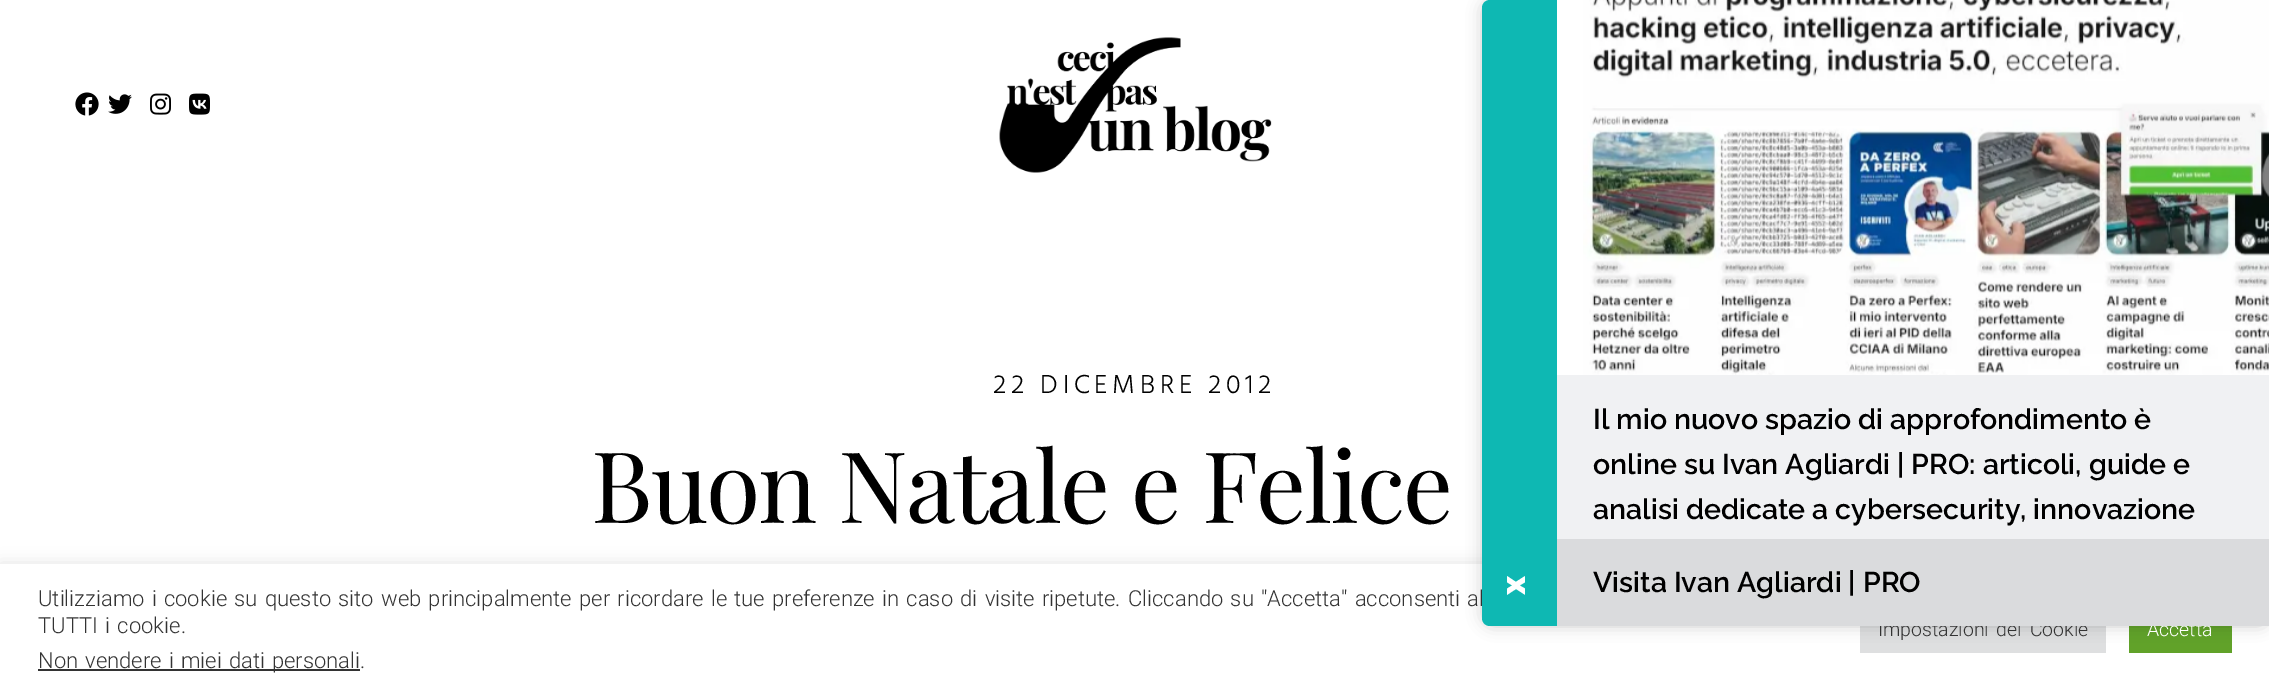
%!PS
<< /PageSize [2269 694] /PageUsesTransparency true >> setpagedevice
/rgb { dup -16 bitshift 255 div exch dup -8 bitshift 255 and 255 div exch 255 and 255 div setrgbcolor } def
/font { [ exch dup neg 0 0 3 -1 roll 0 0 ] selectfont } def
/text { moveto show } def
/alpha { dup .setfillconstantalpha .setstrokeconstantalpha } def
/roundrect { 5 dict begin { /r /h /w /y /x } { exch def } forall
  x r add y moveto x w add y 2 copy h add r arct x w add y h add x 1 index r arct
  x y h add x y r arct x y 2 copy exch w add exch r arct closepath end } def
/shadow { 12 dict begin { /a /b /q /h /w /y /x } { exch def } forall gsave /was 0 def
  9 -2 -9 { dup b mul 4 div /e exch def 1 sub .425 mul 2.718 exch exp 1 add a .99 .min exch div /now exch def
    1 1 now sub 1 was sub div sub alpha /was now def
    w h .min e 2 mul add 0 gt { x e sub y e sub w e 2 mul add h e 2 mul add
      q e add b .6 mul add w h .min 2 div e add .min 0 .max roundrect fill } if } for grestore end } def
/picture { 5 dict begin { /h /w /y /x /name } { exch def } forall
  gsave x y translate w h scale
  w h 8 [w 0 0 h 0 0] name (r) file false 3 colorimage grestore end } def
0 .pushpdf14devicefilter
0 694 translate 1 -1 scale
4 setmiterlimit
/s1 { /Raleway-SemiBold 28.5 font 16#000000 rgb } def
/s2 { /Roboto-Light 19.5 font 16#FFFFFF rgb } def
/s3 { /Roboto-Light 22 font 16#333333 rgb } def
16#FFFFFF rgb
0 0 2269 694 rectfill
(pic1.raw) 75 92 24 24 picture
(pic2.raw) 108 94 24 20 picture
(pic3.raw) 150 93 21 22 picture
(pic4.raw) 189 93 21 22 picture
(pic5.raw) 999 37 273 136 picture
/Hind-Light 26.75 font
16#000000 rgb
993 393 moveto 4.8 0 (22 DICEMBRE 2012) ashow
/PlayfairDisplay-Regular 99 font
591 523 moveto -2 0 (Buon Natale e Felice) ashow
16#ACABAB rgb
0 563 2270 130 0 7.5 0.3 shadow
16#FFFFFF rgb
0 564 2269 130 rectfill
16#DEDFE0 rgb
1860 626 246 27 rectfill
16#61A229 rgb
2129 626 103 27 rectfill
16#131313 rgb
1482 0 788 626 11 7.5 0.2 shadow
16#0EB8B3 rgb
1490 0 moveto 1557 0 lineto 1557 626 lineto 1490 626 lineto 1485.5 626 1482 622.5 1482 618 curveto 1482 8 lineto 1482 3.5 1485.5 0 1490 0 curveto closepath fill
/Raleway-Black 34 font
16#FFFFFF rgb
gsave 1507 576 translate 90 rotate 0 0 moveto (x) show grestore
1557 0 712 375 rectfill
(pic6.raw) 1583 0 686 375 picture
16#F0F1F3 rgb
1557 375 712 164 rectfill
s1
(Il mio nuovo spazio di approfondimento è) 1593 429 text
(online su Ivan Agliardi | PRO: articoli, guide e) 1593 474 text
(analisi dedicate a cybersecurity, innovazione) 1593 519 text
/Roboto-Light 19.5 font
16#333333 rgb
1878 636 moveto 3 0 32 (Impostazioni dei Cookie) widthshow
s2
(Accetta) 2147 636 text
16#DADBDD rgb
1557 539 712 87 rectfill
s1
(Visita Ivan Agliardi | PRO) 1593 592 text
/Roboto-Light 22 font
16#333333 rgb
38 606 moveto 1.9 0 32 (Utilizziamo i cookie su questo sito web principalmente per ricordare le tue preferenze in caso di visite ripetute. Cliccando su "Accetta" acconsenti al) widthshow
38 633 moveto 2 0 32 (TUTTI i cookie.) widthshow
38 669 322 2 rectfill
38 668 moveto 1.75 0 32 (Non vendere i miei dati personali) widthshow
(.) 360 668 text
.poppdf14devicefilter showpage
